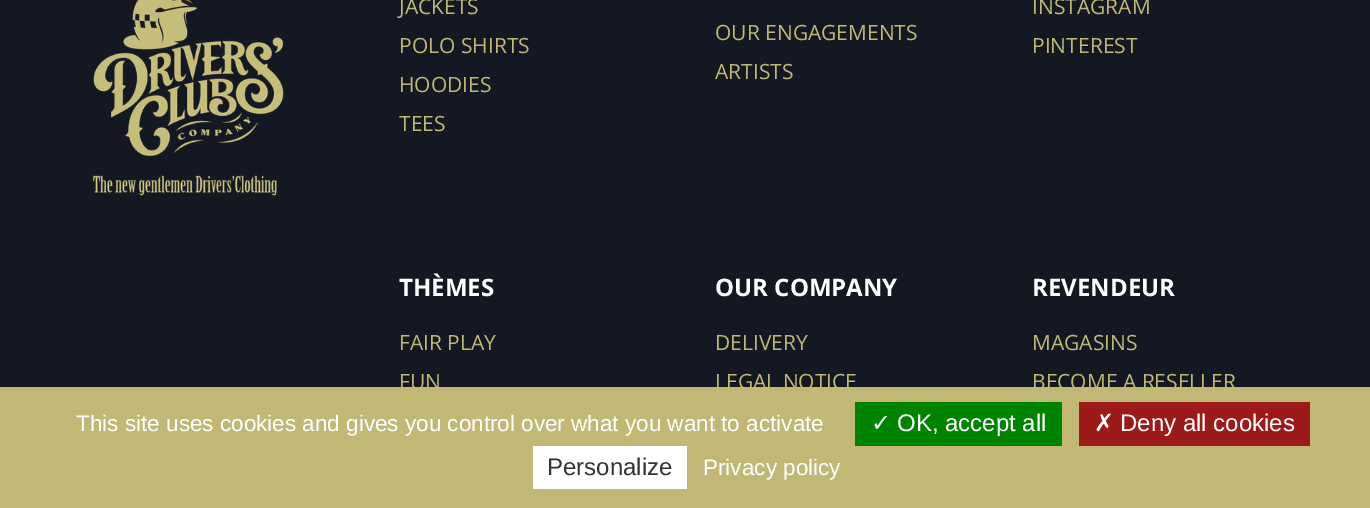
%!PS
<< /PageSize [1370 508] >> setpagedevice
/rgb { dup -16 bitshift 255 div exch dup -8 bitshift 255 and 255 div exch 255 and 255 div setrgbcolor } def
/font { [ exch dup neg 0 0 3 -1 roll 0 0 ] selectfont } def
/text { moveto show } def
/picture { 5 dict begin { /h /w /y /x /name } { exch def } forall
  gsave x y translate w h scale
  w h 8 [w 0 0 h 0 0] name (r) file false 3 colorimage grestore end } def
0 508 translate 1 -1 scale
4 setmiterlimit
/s1 { /OpenSans-Regular 21 font 16#C0B874 rgb } def
/s2 { /OpenSans-Bold 24 font 16#FFFFFF rgb } def
/s3 { /LiberationSans-Regular 22.5 font 16#FFFFFF rgb } def
/s4 { /DejaVuSans-Regular 24 font 16#FFFFFF rgb } def
/s5 { /LiberationSans-Regular 24 font 16#FFFFFF rgb } def
/s6 { /LiberationSans-Regular 24 font 16#333333 rgb } def
16#141823 rgb
0 0 1370 508 rectfill
(pic1.raw) 92 0 193 196 picture
s1
(JACKETS) 399 14 text
(POLO SHIRTS) 399 53 text
(HOODIES) 399 92 text
(TEES) 399 131 text
(OUR ENGAGEMENTS) 715 40 text
(ARTISTS) 715 79 text
(INSTAGRAM) 1032 14 text
(PINTEREST) 1032 53 text
s2
(THÈMES) 399 296 text
s1
(FAIR PLAY) 399 350 text
(FUN) 399 389 text
s2
(OUR COMPANY) 715 296 text
s1
(DELIVERY) 715 350 text
(LEGAL NOTICE) 715 389 text
s2
(REVENDEUR) 1032 296 text
s1
(MAGASINS) 1032 350 text
(BECOME A RESELLER) 1032 389 text
0 387 1370 121 rectfill
s3
(This site uses cookies and gives you control over what you want to activate) 76 431 text
16#008300 rgb
855 402 207 44 rectfill
s4
(✓) 871 431 text
s5
(OK, accept all) 897 431 text
16#9C1A1A rgb
1079 402 231 44 rectfill
s4
(✗) 1094 431 text
s5
(Deny all cookies) 1120 431 text
533 446 154 43 rectfill
s6
(Personalize) 547 475 text
s3
(Privacy policy) 703 475 text
showpage
